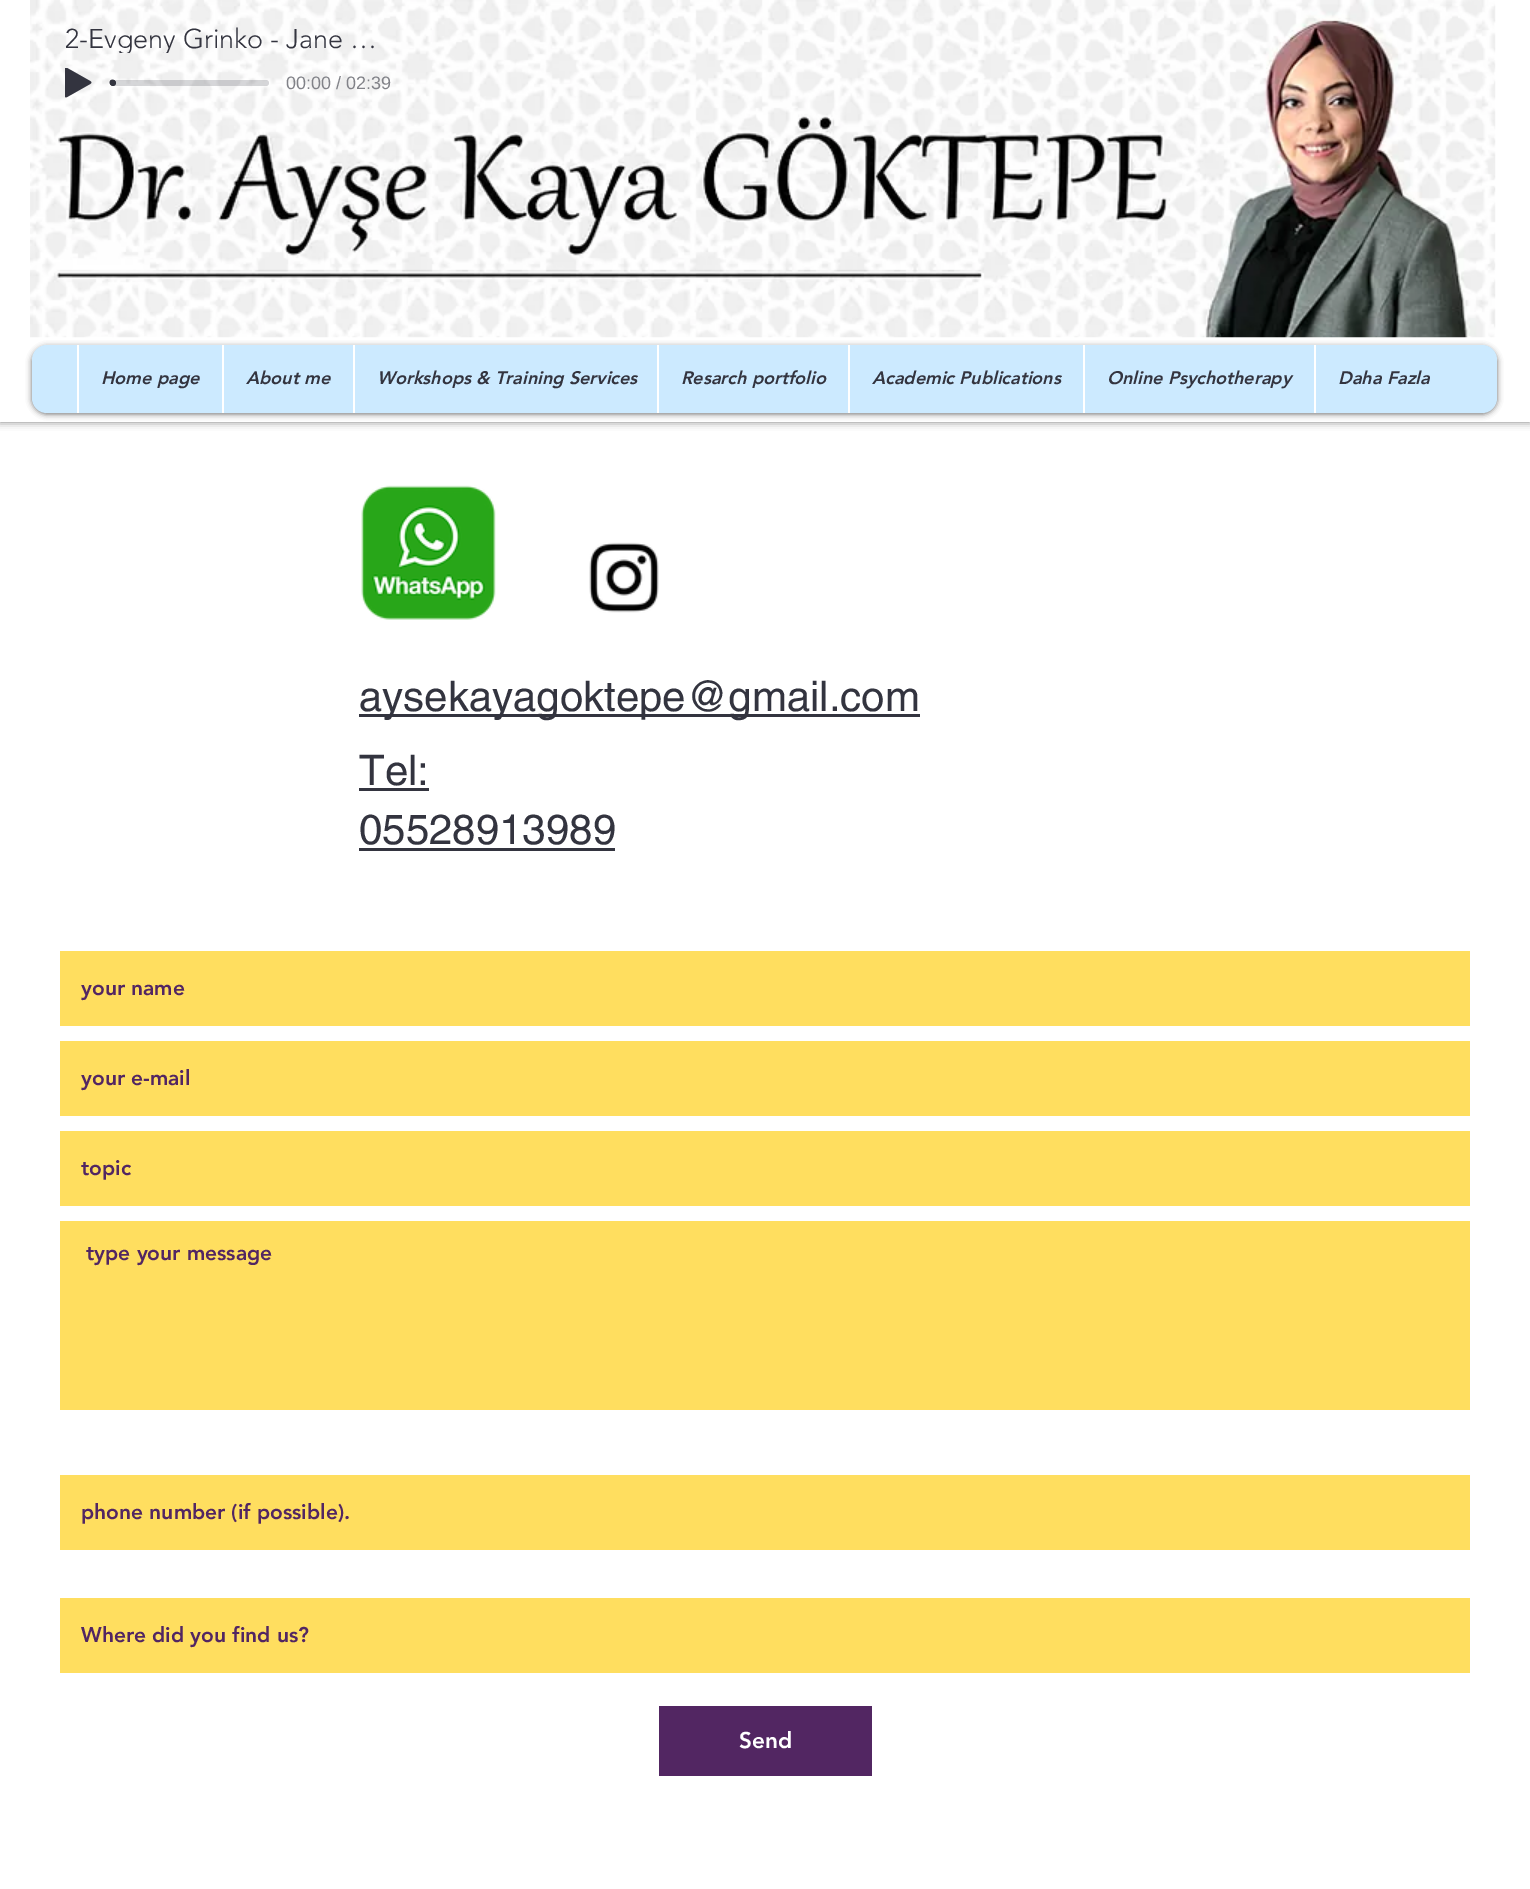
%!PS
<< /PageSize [1530 1889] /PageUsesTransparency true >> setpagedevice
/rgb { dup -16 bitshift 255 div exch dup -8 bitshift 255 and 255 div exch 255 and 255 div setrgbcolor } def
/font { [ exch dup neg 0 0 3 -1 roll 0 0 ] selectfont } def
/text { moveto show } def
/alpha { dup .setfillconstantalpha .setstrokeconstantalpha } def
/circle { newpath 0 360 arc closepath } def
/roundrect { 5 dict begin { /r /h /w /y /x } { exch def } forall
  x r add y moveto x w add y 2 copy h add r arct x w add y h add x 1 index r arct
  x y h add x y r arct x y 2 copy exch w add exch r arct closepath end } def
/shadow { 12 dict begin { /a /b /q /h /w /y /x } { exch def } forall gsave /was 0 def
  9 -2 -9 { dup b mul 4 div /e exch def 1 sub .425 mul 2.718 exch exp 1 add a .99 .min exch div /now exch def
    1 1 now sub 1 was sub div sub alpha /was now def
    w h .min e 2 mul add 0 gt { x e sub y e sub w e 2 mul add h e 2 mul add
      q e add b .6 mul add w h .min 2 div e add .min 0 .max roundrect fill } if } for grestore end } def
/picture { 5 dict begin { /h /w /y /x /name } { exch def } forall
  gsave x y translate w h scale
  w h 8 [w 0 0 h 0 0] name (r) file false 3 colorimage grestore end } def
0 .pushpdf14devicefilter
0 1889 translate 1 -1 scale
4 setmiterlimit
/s1 { /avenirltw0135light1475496-Light 27 font 16#33343F rgb } def
/s2 { /LiberationSans-Regular 18 font 16#818288 rgb } def
/s3 { /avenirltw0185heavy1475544-BlackItalic 18 font 16#33343F rgb } def
/s4 { /helvetica-Regular 42 font 16#33343F rgb } def
/s5 { /avenirltw0185heavy1475544-Black 21 font 16#522662 rgb } def
/s6 { /avenirltw0185heavy1475544-Black 22.5 font 16#FFFFFF rgb } def
16#FFFFFF rgb
0 0 1530 1889 rectfill
gsave
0 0 moveto 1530 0 lineto 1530 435 lineto 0 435 lineto closepath 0 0 moveto 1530 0 lineto 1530 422 lineto 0 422 lineto closepath eoclip newpath
16#000000 rgb
0 0 1530 422 0 4 0.5 shadow
grestore
(pic1.raw) 30 0 1466 338 picture
gsave
65 26 327 27 rectclip
s1
(2-Evgeny Grinko - Jane …) 65 48 text
grestore
(pic2.raw) 65 68 27 30 picture
0.2 alpha
16#33343F rgb
113 80 156 6 3 roundrect fill
1 alpha
113 83 3 circle fill
s2
(00:00 / 02:39) 286 89 text
16#000000 rgb
32 347 1465 67 15 3 0.6 shadow
16#CCEAFF rgb
32 345 1465 68 15 roundrect fill
16#FFFFFF rgb
77 345 2 68 rectfill
s3
(Home page) 101 384 text
16#FFFFFF rgb
222 345 2 68 rectfill
s3
(About me) 246 384 text
16#FFFFFF rgb
353 345 2 68 rectfill
s3
(Workshops & Training Services) 377 384 text
16#FFFFFF rgb
657 345 2 68 rectfill
s3
(Resarch portfolio) 681 384 text
16#FFFFFF rgb
848 345 2 68 rectfill
s3
(Academic Publications) 872 384 text
16#FFFFFF rgb
1083 345 2 68 rectfill
s3
(Online Psychotherapy) 1107 384 text
16#FFFFFF rgb
1314 345 2 68 rectfill
s3
(Daha Fazla) 1338 384 text
(pic3.raw) 361 485 135 135 picture
(pic4.raw) 589 542 70 71 picture
359 714 561 3 rectfill
s4
(aysekayagoktepe@gmail.com) 359 711 text
(Tel:) 359 785 text
359 788 70 3 rectfill
(05528913989) 359 844 text
359 848 256 3 rectfill
16#FFDE5F rgb
60 951 1410 75 rectfill
s5
(your name) 81 995 text
16#FFDE5F rgb
60 1041 1410 75 rectfill
s5
(your e-mail) 81 1085 text
16#FFDE5F rgb
60 1131 1410 75 rectfill
s5
(topic) 81 1175 text
16#FFDE5F rgb
60 1221 1410 189 rectfill
s5
(type your message) 86 1260 text
16#FFDE5F rgb
60 1475 1410 75 rectfill
s5
(phone number \(if possible\).) 81 1519 text
16#FFDE5F rgb
60 1598 1410 75 rectfill
s5
(Where did you find us?) 81 1642 text
659 1706 213 70 rectfill
s6
(Send) 739 1748 text
.poppdf14devicefilter showpage
